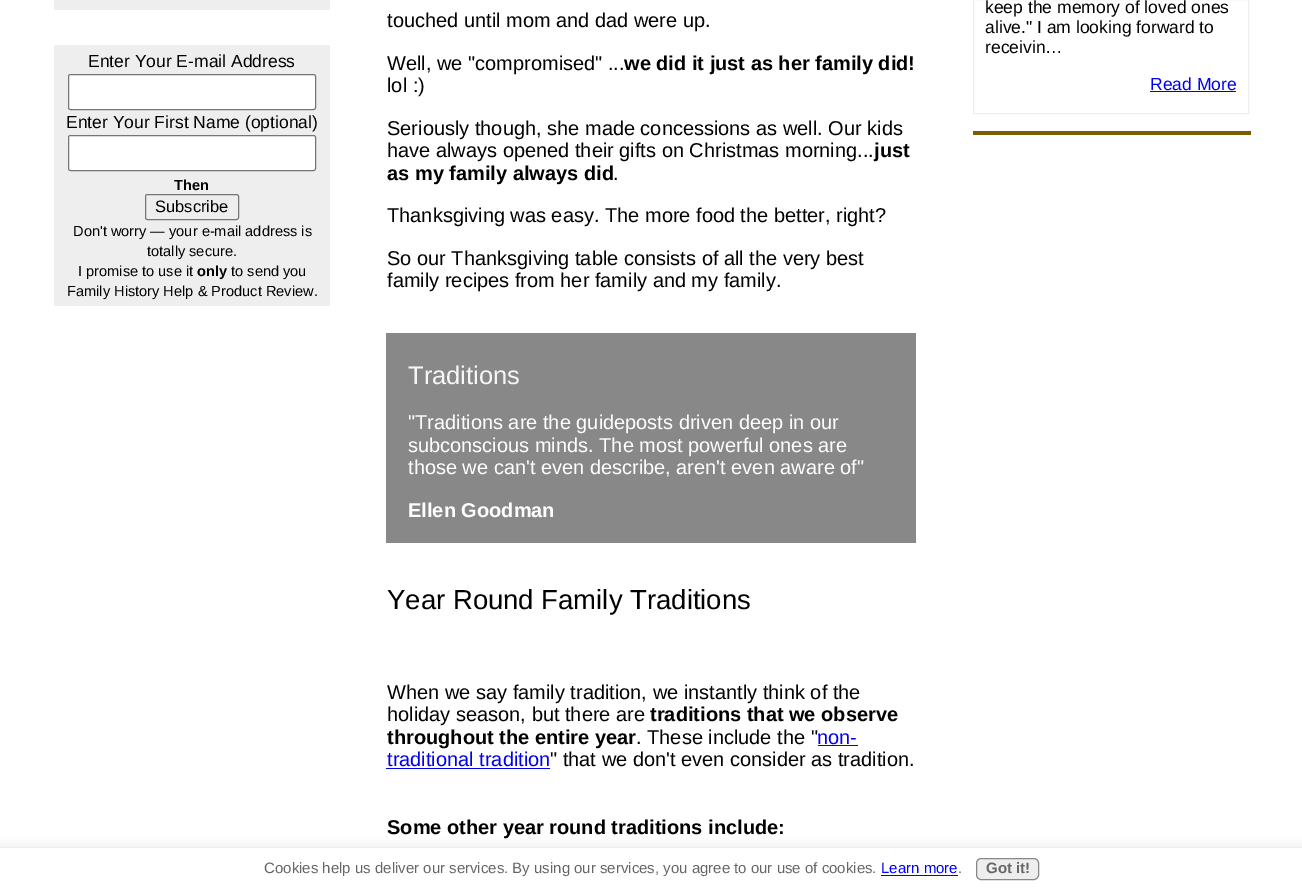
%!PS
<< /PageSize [1302 890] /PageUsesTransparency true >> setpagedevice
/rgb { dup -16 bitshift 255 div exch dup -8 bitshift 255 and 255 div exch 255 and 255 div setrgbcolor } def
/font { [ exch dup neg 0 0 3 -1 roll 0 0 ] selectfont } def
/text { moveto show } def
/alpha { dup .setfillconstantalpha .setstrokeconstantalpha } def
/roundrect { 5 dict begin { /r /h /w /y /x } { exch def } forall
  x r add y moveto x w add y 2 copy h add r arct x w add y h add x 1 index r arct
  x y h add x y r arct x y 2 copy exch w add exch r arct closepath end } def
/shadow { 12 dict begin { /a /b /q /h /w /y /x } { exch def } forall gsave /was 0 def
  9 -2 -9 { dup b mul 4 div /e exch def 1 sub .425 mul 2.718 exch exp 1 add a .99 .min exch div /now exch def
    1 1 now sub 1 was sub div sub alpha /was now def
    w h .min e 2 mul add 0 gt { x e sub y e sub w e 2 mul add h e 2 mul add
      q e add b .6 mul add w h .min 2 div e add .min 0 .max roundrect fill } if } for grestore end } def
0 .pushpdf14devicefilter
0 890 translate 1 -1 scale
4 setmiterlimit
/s1 { /LiberationSans-Regular 17.5 font 16#000000 rgb } def
/s2 { /LiberationSans-Bold 14.6 font 16#000000 rgb } def
/s3 { /LiberationSans-Regular 16.5 font 16#000000 rgb } def
/s4 { /LiberationSans-Regular 14.6 font 16#000000 rgb } def
/s5 { /LiberationSans-Regular 20 font 16#000000 rgb } def
/s6 { /LiberationSans-Bold 20 font 16#000000 rgb } def
/s7 { /LiberationSans-Regular 25.5 font 16#F7F7F7 rgb } def
/s8 { /LiberationSans-Regular 20 font 16#FFFFFF rgb } def
/s9 { /LiberationSans-Bold 20 font 16#FFFFFF rgb } def
/s10 { /LiberationSans-Regular 27.5 font 16#000000 rgb } def
/s11 { /LiberationSans-Regular 20 font 16#0000EE rgb } def
/s12 { /LiberationSans-Regular 17.5 font 16#0000EE rgb } def
/s13 { /LiberationSans-Regular 15 font 16#666666 rgb } def
/s14 { /LiberationSans-Regular 15 font 16#0000FF rgb } def
/s15 { /LiberationSans-Bold 15 font 16#666666 rgb } def
16#FFFFFF rgb
0 0 1302 890 rectfill
16#EEEEEE rgb
54 0 276 10 rectfill
54 45 276 261 rectfill
s1
(Enter Your E-mail Address) 88 67 text
16#FFFFFF rgb
68.5 74.5 247 35 2 roundrect gsave fill grestore
16#767676 rgb
stroke
s1
(Enter Your First Name \(optional\)) 66 128 text
16#FFFFFF rgb
68.5 135.5 247 35 2 roundrect gsave fill grestore
16#767676 rgb
stroke
s2
(Then) 174 190 text
16#767676 rgb
145.5 194.5 93 25 2 roundrect stroke
s3
(Subscribe) 155 212 text
s4
(Don't worry — your e-mail address is) 73 236 text
(totally secure.) 147 256 text
(I promise to use it) 78 276 text
s2
(only) 197 276 text
s4
(to send you) 231 276 text
(Family History Help & Product Review.) 67 296 text
s5
(touched until mom and dad were up.) 387 27 text
(Well, we "compromised" ...) 387 70 text
s6
(we did it just as her family did!) 624 70 text
s5
(lol :\)) 387 92 text
(Seriously though, she made concessions as well. Our kids) 387 135 text
(have always opened their gifts on Christmas morning...) 387 157 text
s6
(just) 874 157 text
(as my family always did) 387 180 text
s5
(.) 613 180 text
(Thanksgiving was easy. The more food the better, right?) 387 222 text
(So our Thanksgiving table consists of all the very best) 387 265 text
(family recipes from her family and my family.) 387 287 text
16#888888 rgb
386 333 530 210 rectfill
s7
(Traditions) 408 384 text
s8
("Traditions are the guideposts driven deep in our) 408 429 text
(subconscious minds. The most powerful ones are) 408 452 text
(those we can't even describe, aren't even aware of") 408 474 text
s9
(Ellen Goodman) 408 517 text
s10
(Year Round Family Traditions) 387 609 text
s5
(When we say family tradition, we instantly think of the) 387 699 text
(holiday season, but there are) 387 721 text
s6
(traditions that we observe) 650 721 text
(throughout the entire year) 387 744 text
s5
(. These include the ") 636 744 text
s11
(non-) 817 744 text
818 745 40 1 rectfill
(traditional tradition) 387 766 text
386 768 164 1 rectfill
s5
(" that we don't even consider as tradition.) 550 766 text
s6
(Some other year round traditions include:) 387 834 text
16#EEEEEE rgb
973.5 -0.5 275 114 rectstroke
s1
(keep the memory of loved ones) 985 13 text
(alive." I am looking forward to) 985 33 text
(receivin…) 985 53 text
s12
(Read More) 1150 90 text
1150 91 86 1 rectfill
16#7A5E00 rgb
973 131 278 4 rectfill
16#000000 rgb
-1 851 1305 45 0 6 0.2 shadow
16#FFFFFF rgb
0 848 1302 42 rectfill
s13
(Cookies help us deliver our services. By using our services, you agree to our use of cookies.) 264 873 text
s14
(Learn more) 881 873 text
881 875 77 1 rectfill
s13
(.) 958 873 text
16#EEEEEE rgb
976.5 858.5 62 21 4.5 roundrect gsave fill grestore
16#888888 rgb
stroke
s15
(Got it!) 986 873 text
.poppdf14devicefilter showpage
